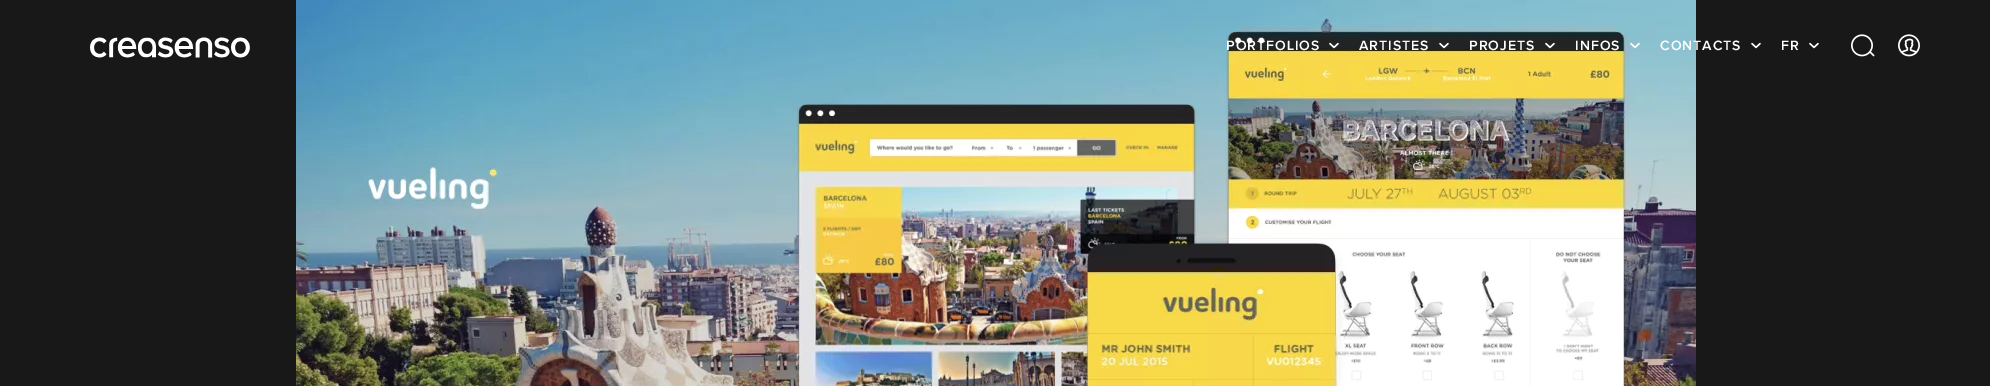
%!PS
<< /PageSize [1990 386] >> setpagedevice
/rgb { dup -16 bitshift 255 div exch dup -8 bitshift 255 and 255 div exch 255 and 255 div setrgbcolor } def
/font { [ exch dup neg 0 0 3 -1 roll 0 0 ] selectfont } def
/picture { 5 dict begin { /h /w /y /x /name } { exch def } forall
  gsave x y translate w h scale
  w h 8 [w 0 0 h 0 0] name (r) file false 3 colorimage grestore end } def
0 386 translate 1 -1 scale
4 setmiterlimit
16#181818 rgb
0 0 1990 386 rectfill
(pic1.raw) 296 0 1400 386 picture
(pic2.raw) 90 37 160 21 picture
/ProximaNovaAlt-SemiBold 14 font
16#FFFFFF rgb
1226 50 moveto 1 0 (PORTFOLIOS) ashow
(pic3.raw) 1329 42 10 7 picture
1359 50 moveto 1 0 (ARTISTES) ashow
(pic4.raw) 1439 42 10 7 picture
1469 50 moveto 1 0 (PROJETS) ashow
(pic5.raw) 1545 42 10 7 picture
1575 50 moveto 1 0 (INFOS) ashow
(pic6.raw) 1630 42 10 7 picture
1660 50 moveto 1 0 (CONTACTS) ashow
(pic7.raw) 1751 42 10 7 picture
1781 50 moveto 1 0 (FR) ashow
(pic7.raw) 1809 42 10 7 picture
(pic8.raw) 1851 34 24 23 picture
(pic9.raw) 1898 34 22 23 picture
showpage
